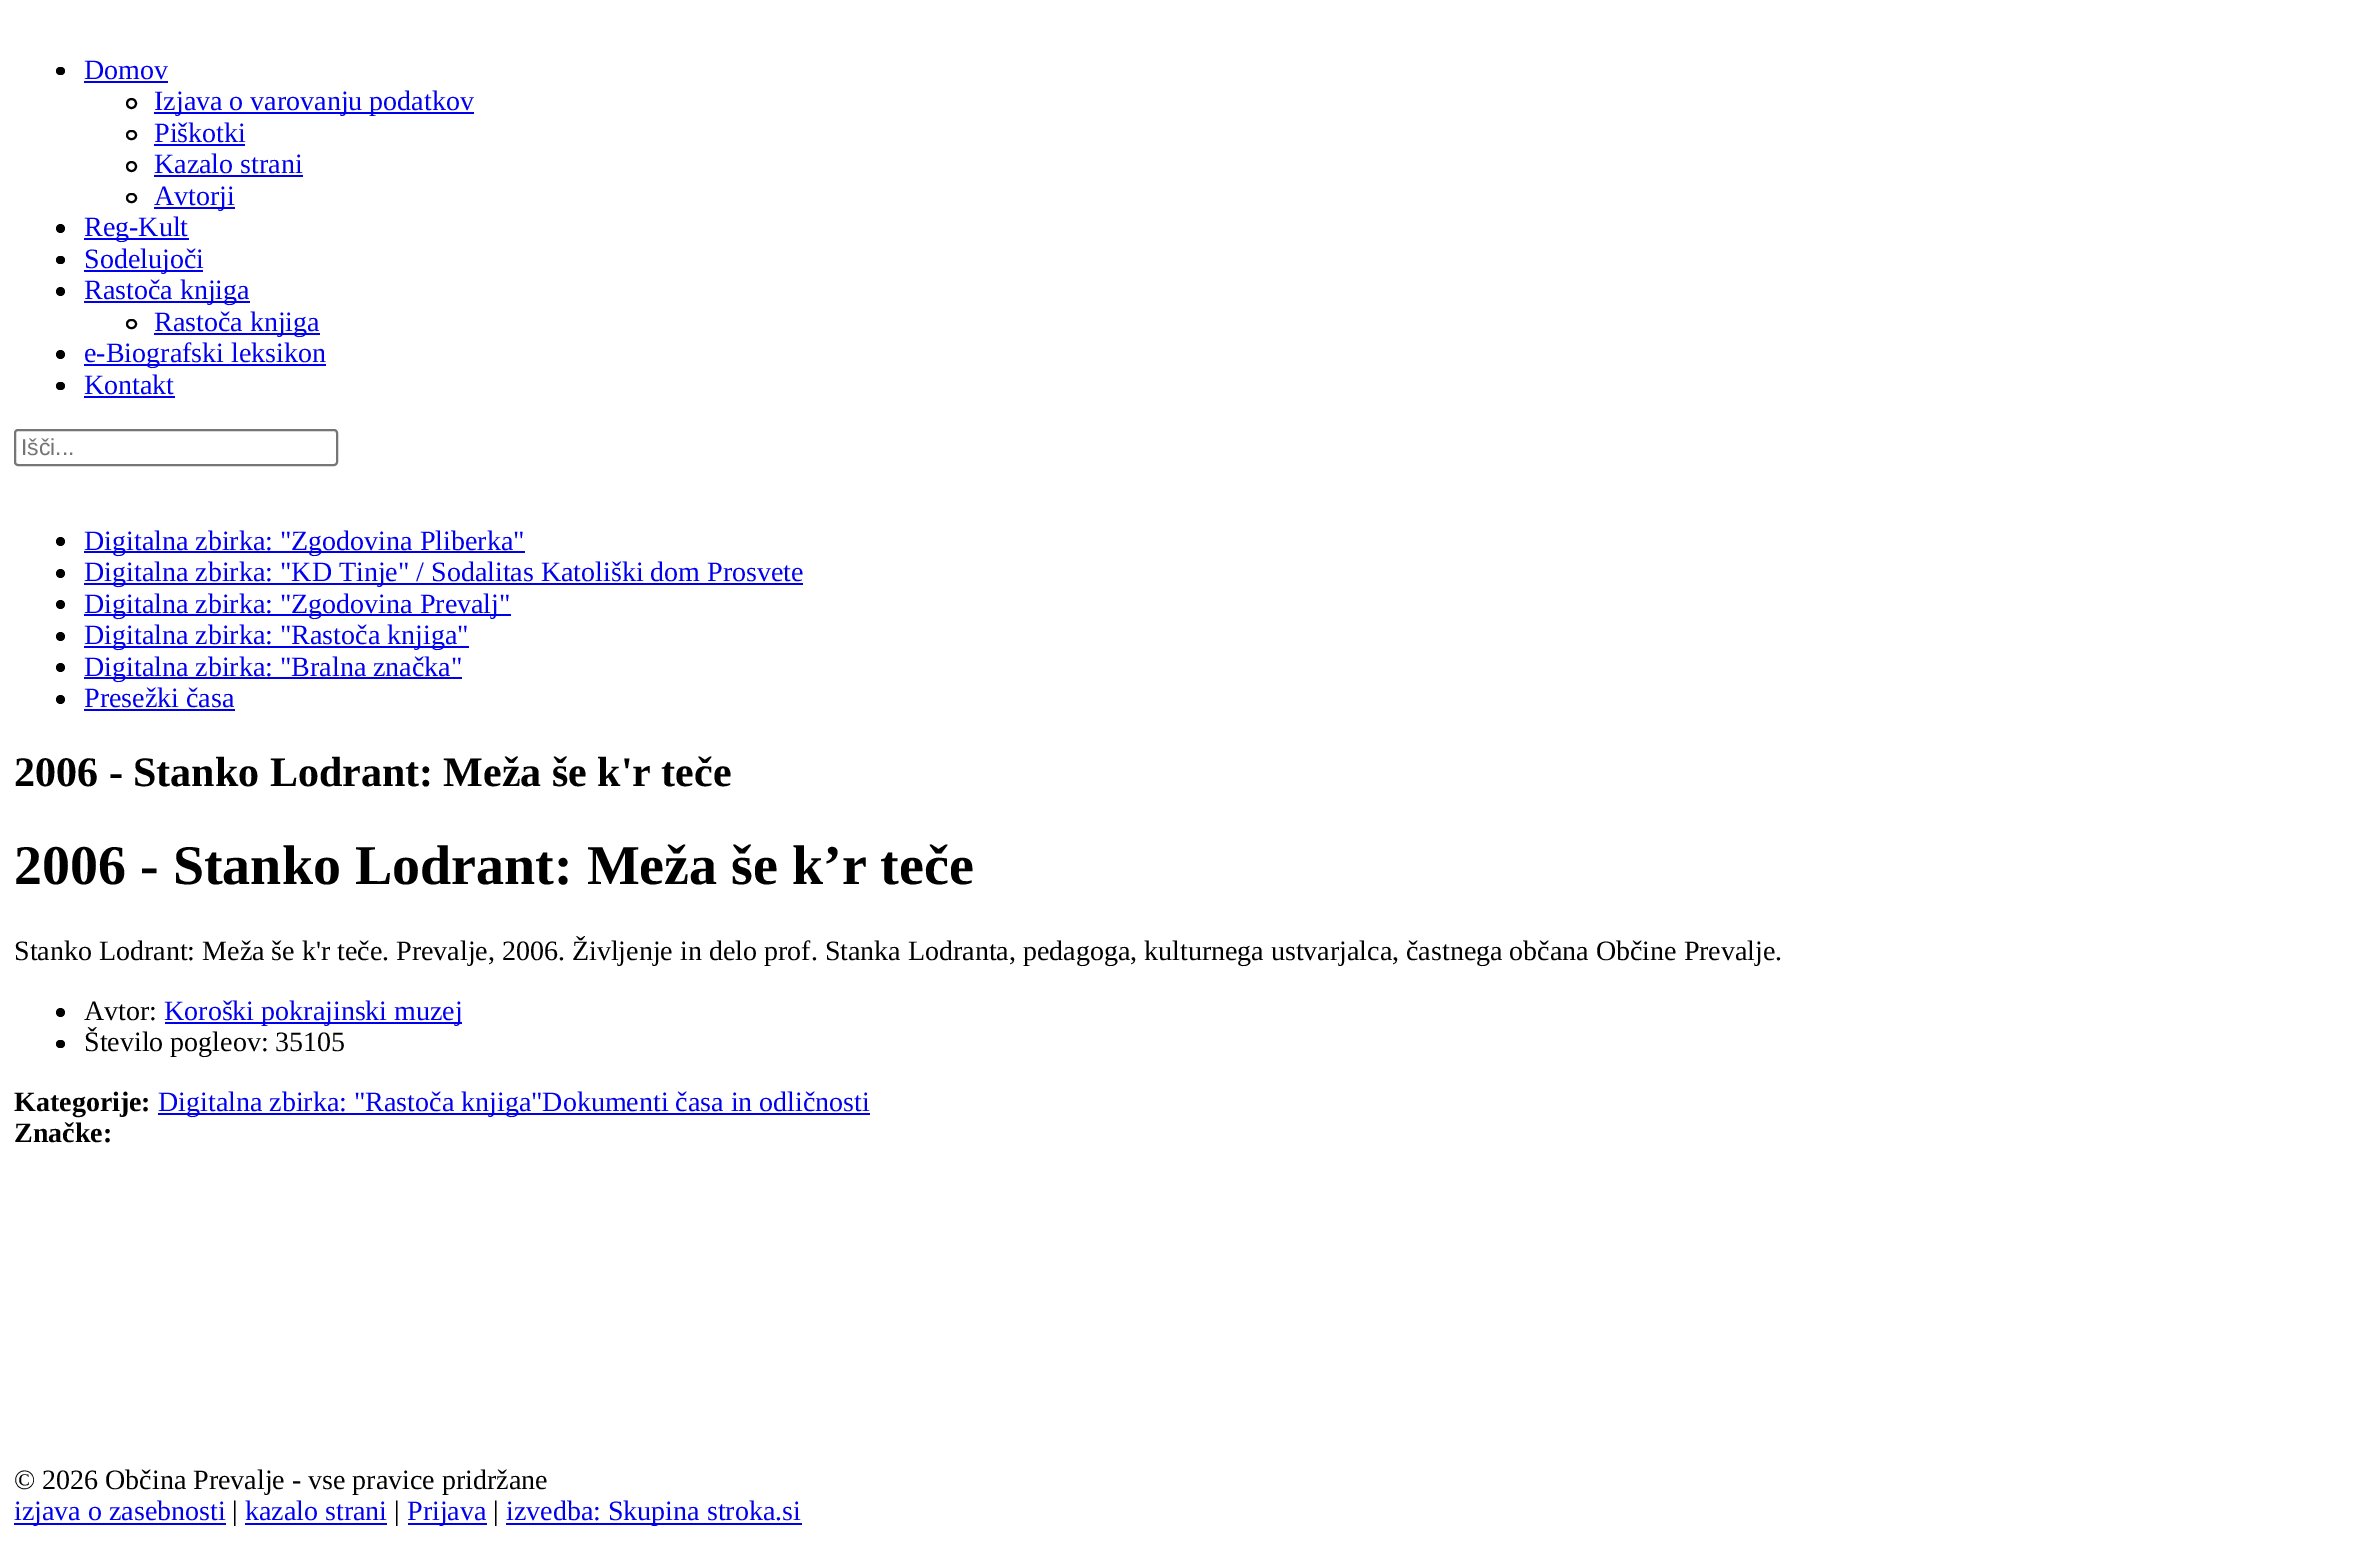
%!PS
<< /PageSize [2357 1541] >> setpagedevice
/rgb { dup -16 bitshift 255 div exch dup -8 bitshift 255 and 255 div exch 255 and 255 div setrgbcolor } def
/font { [ exch dup neg 0 0 3 -1 roll 0 0 ] selectfont } def
/text { moveto show } def
/circle { newpath 0 360 arc closepath } def
/roundrect { 5 dict begin { /r /h /w /y /x } { exch def } forall
  x r add y moveto x w add y 2 copy h add r arct x w add y h add x 1 index r arct
  x y h add x y r arct x y 2 copy exch w add exch r arct closepath end } def
0 1541 translate 1 -1 scale
4 setmiterlimit
/s1 { /LiberationSerif-Regular 28 font 16#0000EE rgb } def
/s2 { /LiberationSans-Regular 23 font 16#757575 rgb } def
/s3 { /LiberationSerif-Bold 42 font 16#000000 rgb } def
/s4 { /LiberationSerif-Bold 56 font 16#000000 rgb } def
/s5 { /LiberationSerif-Regular 28 font 16#000000 rgb } def
/s6 { /LiberationSerif-Bold 28 font 16#000000 rgb } def
16#FFFFFF rgb
0 0 2357 1541 rectfill
16#000000 rgb
56 67 9 8 4 roundrect fill
s1
(Domov) 84 79 text
84 81 84 2 rectfill
16#000000 rgb
2 setlinewidth
131.5 103.5 4.5 circle stroke
16#0000EE rgb
154 112 320 2 rectfill
(Izjava o varovanju podatkov) 154 110 text
16#000000 rgb
127 131 9 8 4 roundrect stroke
s1
(Piškotki) 154 142 text
154 144 91 2 rectfill
16#000000 rgb
131.5 166.5 4.5 circle stroke
s1
(Kazalo strani) 154 173 text
154 175 149 2 rectfill
16#000000 rgb
127 194 9 8 4 roundrect stroke
16#0000EE rgb
154 207 81 2 rectfill
(Avtorji) 154 205 text
16#000000 rgb
60.5 228.5 4.5 circle fill
16#0000EE rgb
84 238 105 2 rectfill
(Reg-Kult) 84 236 text
16#000000 rgb
56 256 9 8 4 roundrect fill
16#0000EE rgb
84 270 119 2 rectfill
(Sodelujoči) 84 268 text
16#000000 rgb
60.5 291.5 4.5 circle fill
16#0000EE rgb
84 301 166 2 rectfill
(Rastoča knjiga) 84 299 text
16#000000 rgb
127 320 9 8 4 roundrect stroke
16#0000EE rgb
154 333 166 2 rectfill
(Rastoča knjiga) 154 331 text
16#000000 rgb
60.5 354.5 4.5 circle fill
16#0000EE rgb
84 364 242 2 rectfill
(e-Biografski leksikon) 84 362 text
16#000000 rgb
56 382 9 8 4 roundrect fill
s1
(Kontakt) 84 394 text
84 396 91 2 rectfill
16#767676 rgb
15 430 322 35 3 roundrect stroke
s2
(Išči...) 21 455 text
16#000000 rgb
60.5 541.5 4.5 circle fill
16#0000EE rgb
84 551 441 2 rectfill
s1
(Digitalna zbirka: "Zgodovina Pliberka") 84 550 text
16#000000 rgb
60.5 573.5 4.5 circle fill
16#0000EE rgb
84 583 719 2 rectfill
(Digitalna zbirka: "KD Tinje" / Sodalitas Katoliški dom Prosvete) 84 581 text
16#000000 rgb
60.5 604.5 4.5 circle fill
16#0000EE rgb
84 614 427 2 rectfill
(Digitalna zbirka: "Zgodovina Prevalj") 84 613 text
16#000000 rgb
60.5 636.5 4.5 circle fill
16#0000EE rgb
84 646 385 2 rectfill
(Digitalna zbirka: "Rastoča knjiga") 84 644 text
16#000000 rgb
60.5 667.5 4.5 circle fill
16#0000EE rgb
84 677 378 2 rectfill
(Digitalna zbirka: "Bralna značka") 84 676 text
16#000000 rgb
60.5 699.5 4.5 circle fill
s1
(Presežki časa) 84 707 text
84 709 151 2 rectfill
s3
(2006 - Stanko Lodrant: Meža še k'r teče) 14 786 text
s4
(2006 - Stanko Lodrant: Meža še k’r teče) 14 884 text
s5
(Stanko Lodrant: Meža še k'r teče. Prevalje, 2006. Življenje in delo prof. Stanka Lodranta, pedagoga, kulturnega ustvarjalca, častnega občana Občine Prevalje.) 14 960 text
60.5 1012.5 4.5 circle fill
(Avtor:) 84 1020 text
16#0000EE rgb
165 1022 297 2 rectfill
(Koroški pokrajinski muzej) 164 1020 text
16#000000 rgb
56 1040 9 8 4 roundrect fill
(Število pogleov: 35105) 84 1051 text
s6
(Kategorije:) 14 1111 text
16#0000EE rgb
158 1113 712 2 rectfill
s1
(Digitalna zbirka: "Rastoča knjiga"Dokumenti časa in odličnosti) 158 1111 text
s6
(Značke:) 14 1142 text
s5
(© 2026 Občina Prevalje - vse pravice pridržane) 14 1489 text
16#0000EE rgb
14 1523 212 2 rectfill
(izjava o zasebnosti) 14 1520 text
s5
(|) 232 1520 text
s1
(kazalo strani) 245 1520 text
245 1523 142 2 rectfill
s5
(|) 394 1520 text
16#0000EE rgb
408 1523 79 2 rectfill
(Prijava) 407 1520 text
s5
(|) 493 1520 text
16#0000EE rgb
506 1523 296 2 rectfill
(izvedba: Skupina stroka.si) 506 1520 text
showpage
